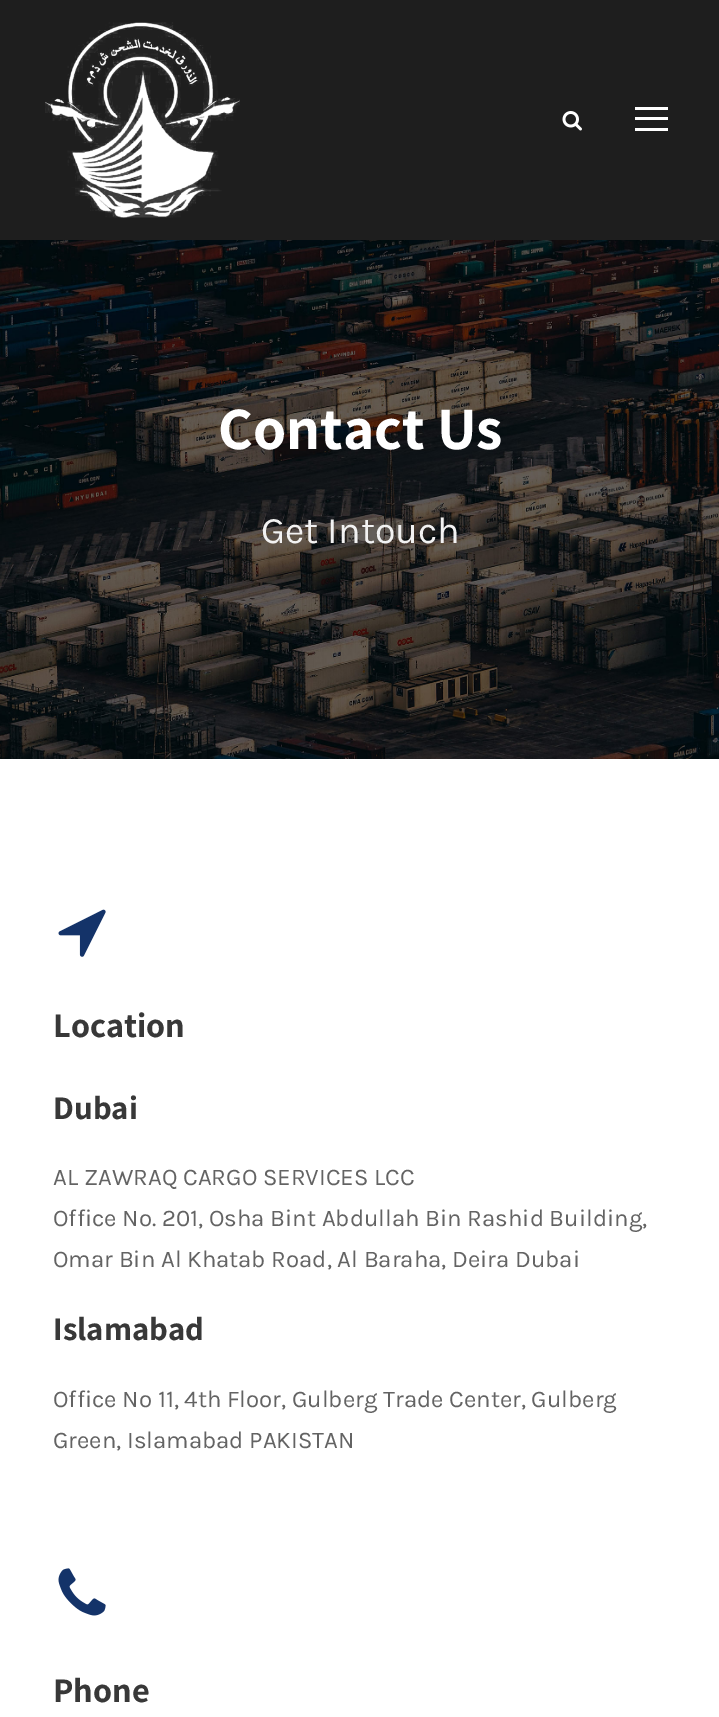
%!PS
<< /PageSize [719 1717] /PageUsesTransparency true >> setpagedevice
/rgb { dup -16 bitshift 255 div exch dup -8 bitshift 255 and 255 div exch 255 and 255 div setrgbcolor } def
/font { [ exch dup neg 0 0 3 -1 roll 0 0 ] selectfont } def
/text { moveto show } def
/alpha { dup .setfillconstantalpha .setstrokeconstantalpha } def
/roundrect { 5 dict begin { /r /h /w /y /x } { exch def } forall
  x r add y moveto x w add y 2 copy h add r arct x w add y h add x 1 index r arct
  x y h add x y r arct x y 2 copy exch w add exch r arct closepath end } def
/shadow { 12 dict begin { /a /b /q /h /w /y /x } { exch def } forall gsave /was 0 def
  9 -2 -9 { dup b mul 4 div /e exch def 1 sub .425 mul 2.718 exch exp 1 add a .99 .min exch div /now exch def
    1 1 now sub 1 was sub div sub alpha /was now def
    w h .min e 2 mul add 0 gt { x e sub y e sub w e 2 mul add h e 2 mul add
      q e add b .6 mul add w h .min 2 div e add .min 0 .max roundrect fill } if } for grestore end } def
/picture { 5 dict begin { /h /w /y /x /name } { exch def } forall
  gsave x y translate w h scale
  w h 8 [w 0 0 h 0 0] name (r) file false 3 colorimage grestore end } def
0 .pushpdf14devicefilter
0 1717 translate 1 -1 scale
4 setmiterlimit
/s1 { /Assistant-Bold 60 font 16#FFFFFF rgb } def
/s2 { /Karla-Regular 37.5 font 16#F2F2F2 rgb } def
/s3 { /Assistant-Bold 34.5 font 16#383838 rgb } def
/s4 { /Assistant-Bold 33 font 16#383838 rgb } def
/s5 { /Karla-Regular 24 font 16#636363 rgb } def
16#FFFFFF rgb
0 0 719 1717 rectfill
(pic3.raw) 0 240 719 519 picture
16#000000 rgb
0 2 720 240 0 1.5 0.1 shadow
16#1E1E1E rgb
0 0 719 240 rectfill
(pic1.raw) 45 22 195 196 picture
(pic2.raw) 562 111 20 20 picture
16#FFFFFF rgb
635 107 33 3 rectfill
635 117 33 3 rectfill
635 128 33 3 rectfill
s1
(Contact Us) 218 449 text
s2
(Get Intouch) 261 543 text
(pic4.raw) 58 909 48 48 picture
s3
(Location) 53 1037 text
s4
(Dubai) 53 1119 text
s5
(AL ZAWRAQ CARGO SERVICES LCC) 53 1185 text
(Office No. 201, Osha Bint Abdullah Bin Rashid Building,) 53 1226 text
(Omar Bin Al Khatab Road, Al Baraha, Deira Dubai) 53 1267 text
s4
(Islamabad) 53 1340 text
s5
(Office No 11, 4th Floor, Gulberg Trade Center, Gulberg) 53 1407 text
(Green, Islamabad PAKISTAN) 53 1448 text
(pic5.raw) 58 1568 48 48 picture
s3
(Phone) 53 1702 text
.poppdf14devicefilter showpage
